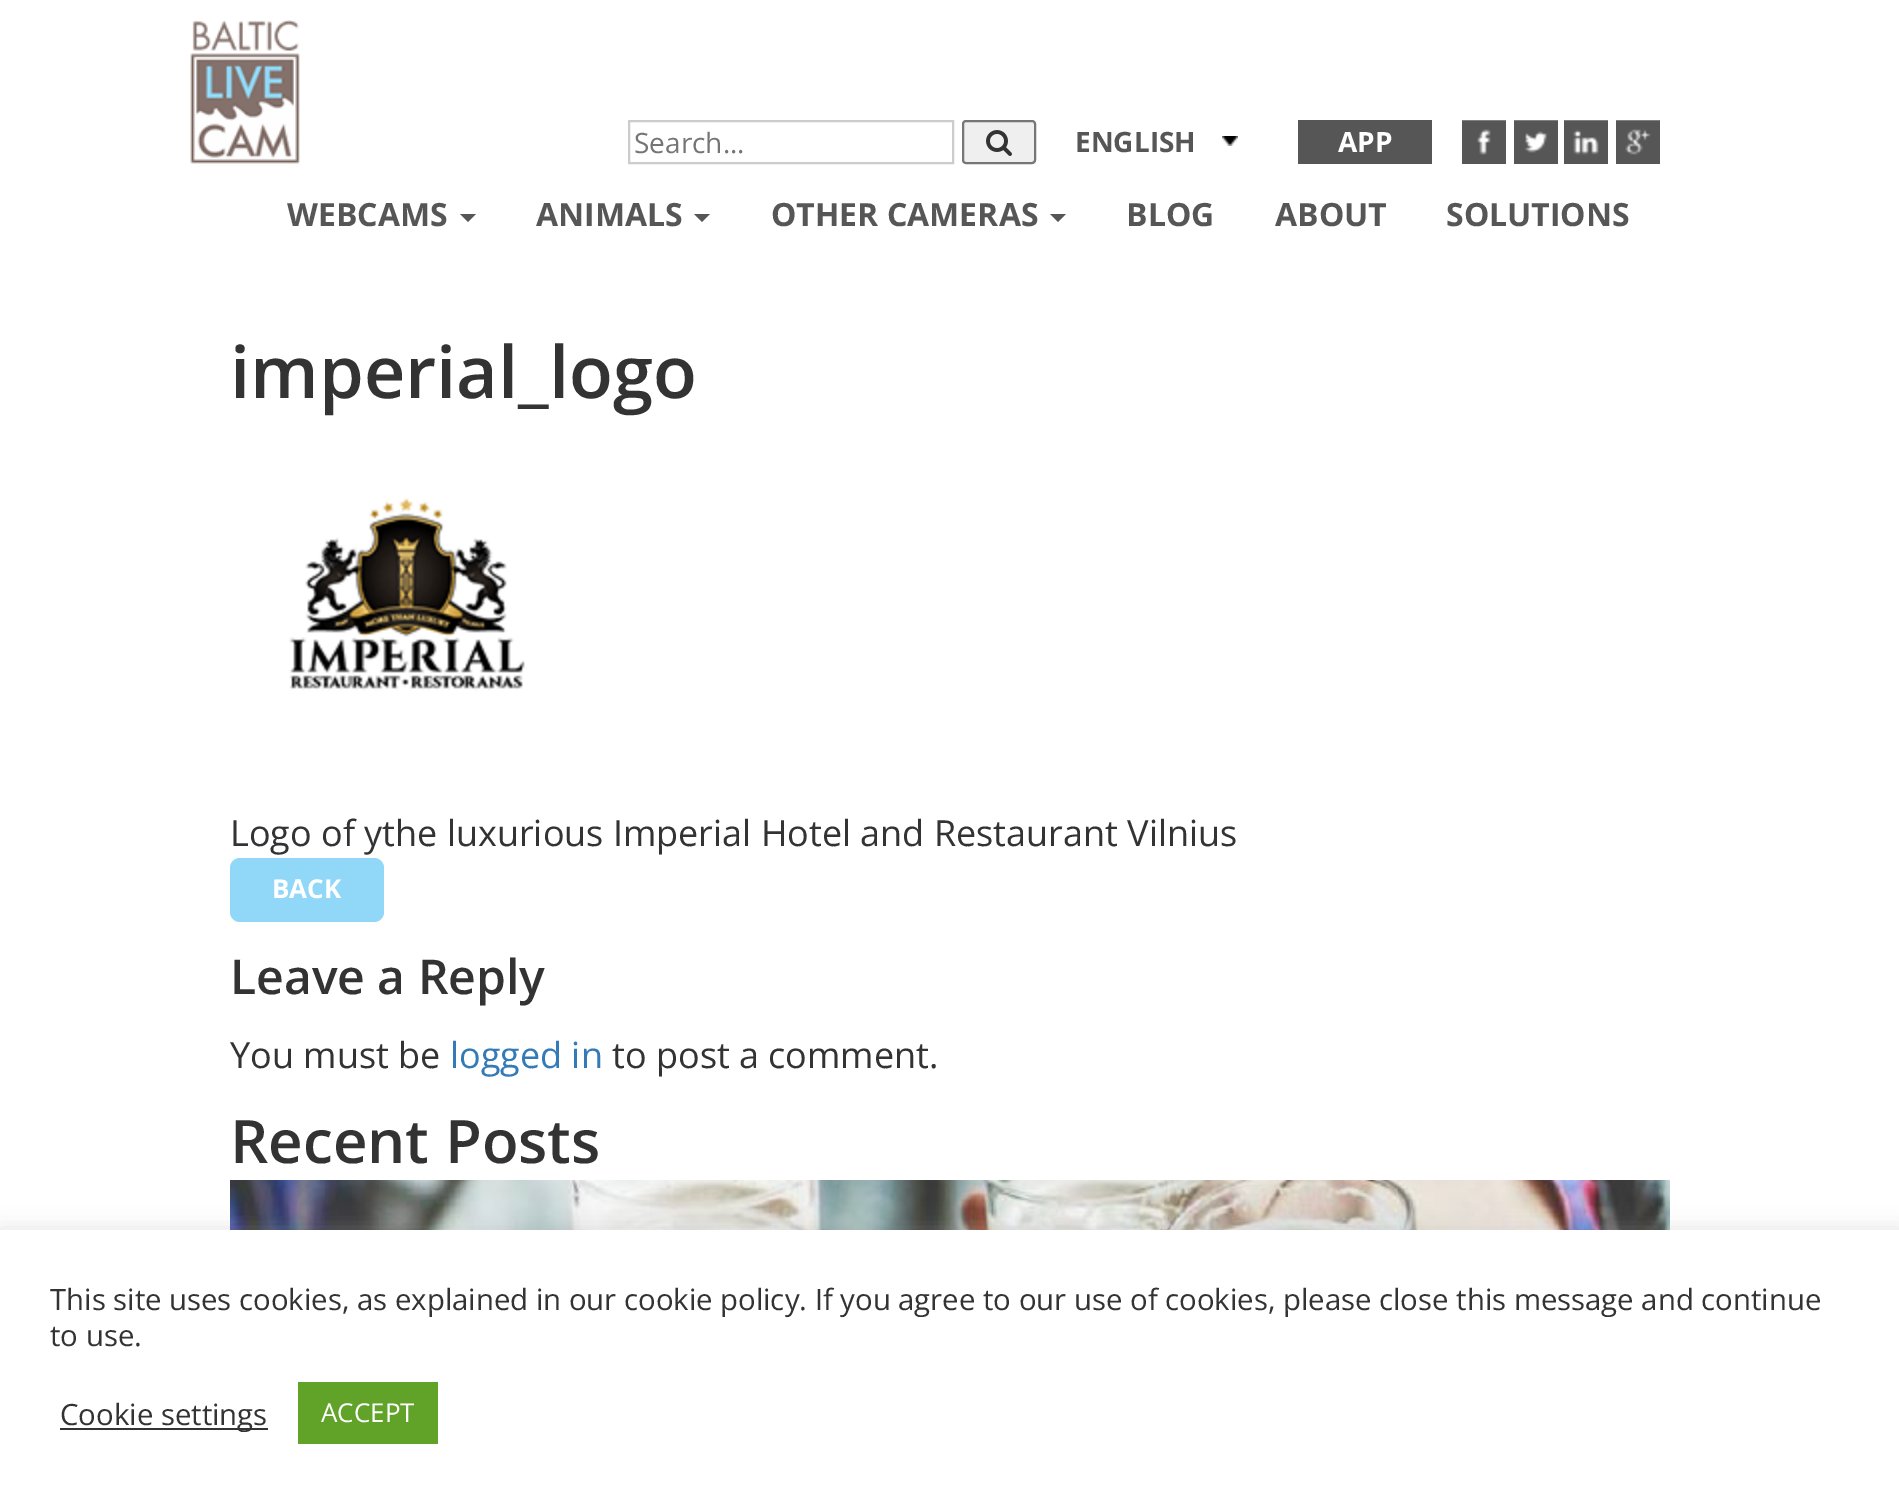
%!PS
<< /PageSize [1899 1504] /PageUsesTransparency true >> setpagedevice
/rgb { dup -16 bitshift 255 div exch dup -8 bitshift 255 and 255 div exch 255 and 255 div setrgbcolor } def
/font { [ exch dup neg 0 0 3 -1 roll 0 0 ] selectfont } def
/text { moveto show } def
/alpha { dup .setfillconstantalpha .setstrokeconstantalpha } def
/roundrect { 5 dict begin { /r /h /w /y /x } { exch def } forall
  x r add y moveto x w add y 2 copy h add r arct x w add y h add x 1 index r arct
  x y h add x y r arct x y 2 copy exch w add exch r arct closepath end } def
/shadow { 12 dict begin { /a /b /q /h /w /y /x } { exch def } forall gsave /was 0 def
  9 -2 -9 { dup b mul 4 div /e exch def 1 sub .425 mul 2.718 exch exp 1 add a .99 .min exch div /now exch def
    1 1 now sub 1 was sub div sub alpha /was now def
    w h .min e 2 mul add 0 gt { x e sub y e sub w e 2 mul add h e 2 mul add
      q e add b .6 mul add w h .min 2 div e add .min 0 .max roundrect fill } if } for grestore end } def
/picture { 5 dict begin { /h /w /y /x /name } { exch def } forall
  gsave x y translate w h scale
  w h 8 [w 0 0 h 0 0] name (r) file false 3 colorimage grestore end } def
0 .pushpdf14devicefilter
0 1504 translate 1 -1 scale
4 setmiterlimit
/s1 { /OpenSans-Regular 28 font 16#757575 rgb } def
/s2 { /OpenSans-Bold 28 font 16#565656 rgb } def
/s3 { /OpenSans-Bold 28 font 16#FFFFFF rgb } def
/s4 { /OpenSans-Bold 32 font 16#565656 rgb } def
/s5 { /OpenSans-SemiBold 72 font 16#333333 rgb } def
/s6 { /OpenSans-Regular 36 font 16#333333 rgb } def
/s7 { /OpenSans-Bold 26 font 16#FFFFFF rgb } def
/s8 { /OpenSans-SemiBold 48 font 16#333333 rgb } def
/s9 { /OpenSans-Regular 36 font 16#337AB7 rgb } def
/s10 { /OpenSans-SemiBold 60 font 16#333333 rgb } def
/s11 { /OpenSans-Regular 29.33 font 16#333333 rgb } def
/s12 { /OpenSans-Regular 26 font 16#FFFFFF rgb } def
16#FFFFFF rgb
0 0 1899 1504 rectfill
(pic1.raw) 190 20 110 144 picture
16#CCCCCC rgb
2 setlinewidth
629 121 324 42 rectstroke
s1
(Search...) 634 153 text
16#EFEFEF rgb
963 121 72 42 3 roundrect gsave fill grestore
16#767676 rgb
stroke
(pic2.raw) 986 130 26 26 picture
(pic3.raw) 1222 136 16 10 picture
s2
(ENGLISH) 1075 152 text
1298 120 134 44 rectfill
s3
(APP) 1338 152 text
(pic4.raw) 1462 120 44 44 picture
(pic5.raw) 1514 120 44 44 picture
(pic6.raw) 1564 120 44 44 picture
(pic7.raw) 1616 120 44 44 picture
s4
(WEBCAMS) 287 226 text
460 214 moveto 476 214 lineto 468 222 lineto closepath fill
(ANIMALS) 536 226 text
694 214 moveto 710 214 lineto 702 222 lineto closepath fill
(OTHER CAMERAS) 771 226 text
1050 214 moveto 1066 214 lineto 1058 222 lineto closepath fill
(BLOG) 1126 226 text
(ABOUT) 1275 226 text
(SOLUTIONS) 1446 226 text
s5
(imperial_logo) 230 398 text
(pic8.raw) 289 497 236 194 picture
s6
(Logo of ythe luxurious Imperial Hotel and Restaurant Vilnius) 230 846 text
16#91D8F8 rgb
230 858 154 64 10 roundrect fill
s7
(BACK) 272 898 text
s8
(Leave a Reply) 230 994 text
s6
(You must be) 230 1068 text
s9
(logged in) 450 1068 text
s6
(to post a comment.) 612 1068 text
s10
(Recent Posts) 230 1163 text
(pic9.raw) 230 1180 1440 50 picture
16#ACABAB rgb
0 1228 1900 274 0 10 0.3 shadow
16#FFFFFF rgb
0 1230 1899 274 rectfill
s11
(This site uses cookies, as explained in our cookie policy. If you agree to our use of cookies, please close this message and continue) 50 1310 text
(to use.) 50 1346 text
60 1428 208 2 rectfill
(Cookie settings) 60 1425 text
16#61A229 rgb
298 1382 140 62 rectfill
s12
(ACCEPT) 321 1422 text
.poppdf14devicefilter showpage
